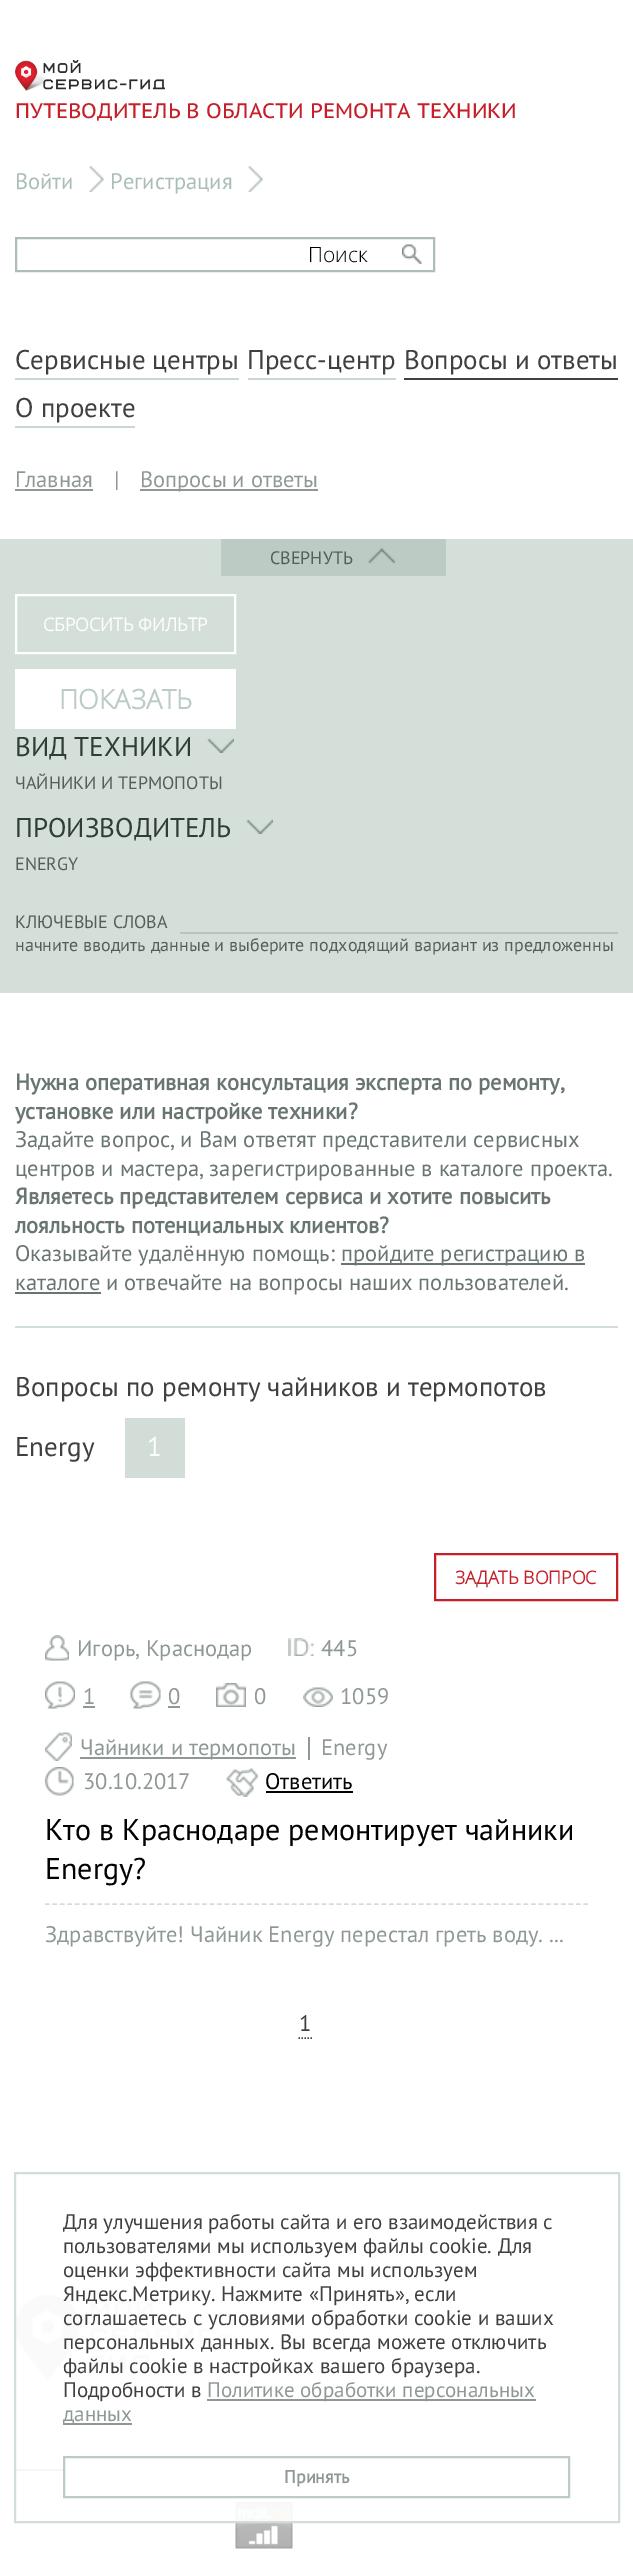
%!PS
<< /PageSize [633 2553] /PageUsesTransparency true >> setpagedevice
/rgb { dup -16 bitshift 255 div exch dup -8 bitshift 255 and 255 div exch 255 and 255 div setrgbcolor } def
/font { [ exch dup neg 0 0 3 -1 roll 0 0 ] selectfont } def
/text { moveto show } def
/alpha { dup .setfillconstantalpha .setstrokeconstantalpha } def
/picture { 5 dict begin { /h /w /y /x /name } { exch def } forall
  gsave x y translate w h scale
  w h 8 [w 0 0 h 0 0] name (r) file false 3 colorimage grestore end } def
0 .pushpdf14devicefilter
0 2553 translate 1 -1 scale
4 setmiterlimit
/s1 { /PTSansCaption-Regular 21 font 16#C52029 rgb } def
/s2 { /PTSans-Regular 22.5 font 16#ABBDB7 rgb } def
/s3 { /OpenSans-Light 21 font 16#000000 rgb } def
/s4 { /PTSans-Regular 27 font 16#404040 rgb } def
/s5 { /PTSans-Regular 22.5 font 16#8E9894 rgb } def
/s6 { /PTSans-Regular 18 font 16#555F5A rgb } def
/s7 { /OpenSans-Bold 18 font 16#FFFFFF rgb } def
/s8 { /OpenSans-Bold 27 font 16#BCCCC5 rgb } def
/s9 { /PTSans-Regular 27 font 16#303C37 rgb } def
/s10 { /PTSans-Bold 22.5 font 16#687570 rgb } def
/s11 { /PTSans-Regular 22.5 font 16#687570 rgb } def
/s12 { /PTSans-Regular 27 font 16#FFFFFF rgb } def
/s13 { /OpenSans-Bold 18 font 16#C52029 rgb } def
/s14 { /PTSans-Regular 22.5 font 16#000000 rgb } def
/s15 { /PTSans-Regular 30 font 16#000000 rgb } def
/s16 { /PTSans-Regular 22.5 font 16#404040 rgb } def
/s17 { /PTSans-Regular 21 font 16#404040 rgb } def
/s18 { /PTSans-Regular 21 font 16#8E9894 rgb } def
/s19 { /PTSans-Bold 18 font 16#8E9894 rgb } def
16#FFFFFF rgb
0 0 633 2553 rectfill
(pic1.raw) 15 60 150 31 picture
s1
(ПУТЕВОДИТЕЛЬ В ОБЛАСТИ РЕМОНТА ТЕХНИКИ) 15 118 text
s2
(Войти) 15 189 text
(pic2.raw) 88 165 16 27 picture
(Регистрация) 110 189 text
(pic2.raw) 247 165 16 27 picture
16#ADBEB8 rgb
2 setlinewidth
16 238 418 33 rectstroke
s3
(Поиск) 308 262 text
(pic3.raw) 402 244 20 20 picture
16#C9D8D3 rgb
15 378 224 2 rectfill
s4
(Сервисные центры) 15 369 text
16#C9D8D3 rgb
248 378 148 2 rectfill
s4
(Пресс-центр) 247 369 text
404 378 214 2 rectfill
(Вопросы и ответы) 404 369 text
16#C9D8D3 rgb
15 426 120 2 rectfill
s4
(О проекте) 15 417 text
s5
(Главная) 15 487 text
15 489 78 2 rectfill
(|) 114 487 text
140 489 178 2 rectfill
(Вопросы и ответы) 140 487 text
16#D4DFDA rgb
0 539 633 454 rectfill
16#BCCBC4 rgb
221 539 225 37 rectfill
s6
(СВЕРНУТЬ) 270 564 text
(pic4.raw) 367 547 29 17 picture
16#FFFFFF rgb
16 595 219 58 rectstroke
s7
(СБРОСИТЬ ФИЛЬТР) 43 631 text
15 669 221 60 rectfill
s8
(ПОКАЗАТЬ) 59 709 text
s9
(ВИД ТЕХНИКИ) 15 756 text
(pic5.raw) 207 738 27 15 picture
s6
(ЧАЙНИКИ И ТЕРМОПОТЫ) 15 789 text
s9
(ПРОИЗВОДИТЕЛЬ) 15 837 text
(pic5.raw) 246 819 27 15 picture
s6
(ENERGY) 15 870 text
(КЛЮЧЕВЫЕ СЛОВА) 15 928 text
16#B8C3BD rgb
180 932 438 2 rectfill
s6
(начните вводить данные и выберите подходящий вариант из предложенны) 15 951 text
16#D2DDD8 rgb
15 1326 603 2 rectfill
s10
(Нужна оперативная консультация эксперта по ремонту,) 15 1090 text
(установке или настройке техники?) 15 1119 text
s11
(Задайте вопрос, и Вам ответят представители сервисных) 15 1147 text
(центров и мастера, зарегистрированные в каталоге проекта.) 15 1176 text
s10
(Являетесь представителем сервиса и хотите повысить) 15 1204 text
(лояльность потенциальных клиентов?) 15 1233 text
s11
(Оказывайте удалённую помощь:) 15 1261 text
341 1263 244 2 rectfill
(пройдите регистрацию в) 341 1261 text
15 1292 86 2 rectfill
(каталоге и отвечайте на вопросы наших пользователей.) 15 1290 text
s4
(Вопросы по ремонту чайников и термопотов) 15 1396 text
(Energy) 15 1456 text
16#D2DDD8 rgb
125 1418 60 60 rectfill
s12
(1) 147 1456 text
16#C52029 rgb
435 1554 182 46 rectstroke
s13
(ЗАДАТЬ ВОПРОС) 455 1584 text
(pic6.raw) 45 1635 24 26 picture
s5
(Игорь, Краснодар) 77 1656 text
(pic7.raw) 288 1638 26 18 picture
(445) 321 1656 text
(pic8.raw) 45 1681 30 28 picture
(1) 83 1704 text
83 1706 12 2 rectfill
(pic9.raw) 130 1681 31 28 picture
(0) 168 1704 text
168 1706 12 2 rectfill
(pic10.raw) 216 1683 30 24 picture
(0) 254 1704 text
(pic11.raw) 303 1687 30 20 picture
(1059) 340 1704 text
(pic12.raw) 45 1732 27 29 picture
80 1757 216 2 rectfill
(Чайники и термопоты) 80 1755 text
308 1737 2 23 rectfill
(Energy) 321 1755 text
(pic13.raw) 45 1767 29 29 picture
(30.10.2017) 83 1789 text
(pic14.raw) 226 1768 32 29 picture
s14
(Ответить) 265 1789 text
266 1791 87 2 rectfill
16#D2DDD8 rgb
1.5 setlinewidth
[4.5 2.98] 0 setdash
45 1904 moveto 588 1904 lineto stroke
s15
(Кто в Краснодаре ремонтирует чайники) 45 1840 text
(Energy?) 45 1879 text
s5
(Здравствуйте! Чайник Energy перестал греть воду. ...) 45 1942 text
s16
(1) 299 2031 text
[1.5 1.5] 0 setdash
298.5 2038 moveto 312 2038 lineto stroke
(pic15.raw) 16 2295 214 86 picture
16#8E9894 rgb
15 2469 48 2 rectfill
(pic16.raw) 235 2502 58 47 picture
0.9 alpha
16#FFFFFF rgb
16 2295 277 226 rectfill
1 alpha
16#D2DDD8 rgb
2 setlinewidth
[] 0 setdash
15 2173 604 349 rectstroke
s17
(Для улучшения работы сайта и его взаимодействия с) 63 2229 text
(пользователями мы используем файлы cookie. Для) 63 2253 text
(оценки эффективности сайта мы используем) 63 2277 text
(Яндекс.Метрику. Нажмите «Принять», если) 63 2301 text
(соглашаетесь с условиями обработки cookie и ваших) 63 2325 text
(персональных данных. Вы всегда можете отключить) 63 2349 text
(файлы cookie в настройках вашего браузера.) 63 2373 text
(Подробности в) 63 2397 text
16#8E9894 rgb
207 2399 329 2 rectfill
(Политике обработки персональных) 207 2397 text
63 2423 69 2 rectfill
(данных) 63 2421 text
16#BCCCC5 rgb
64 2457 505 40 rectstroke
s19
(Принять) 284 2483 text
.poppdf14devicefilter showpage
